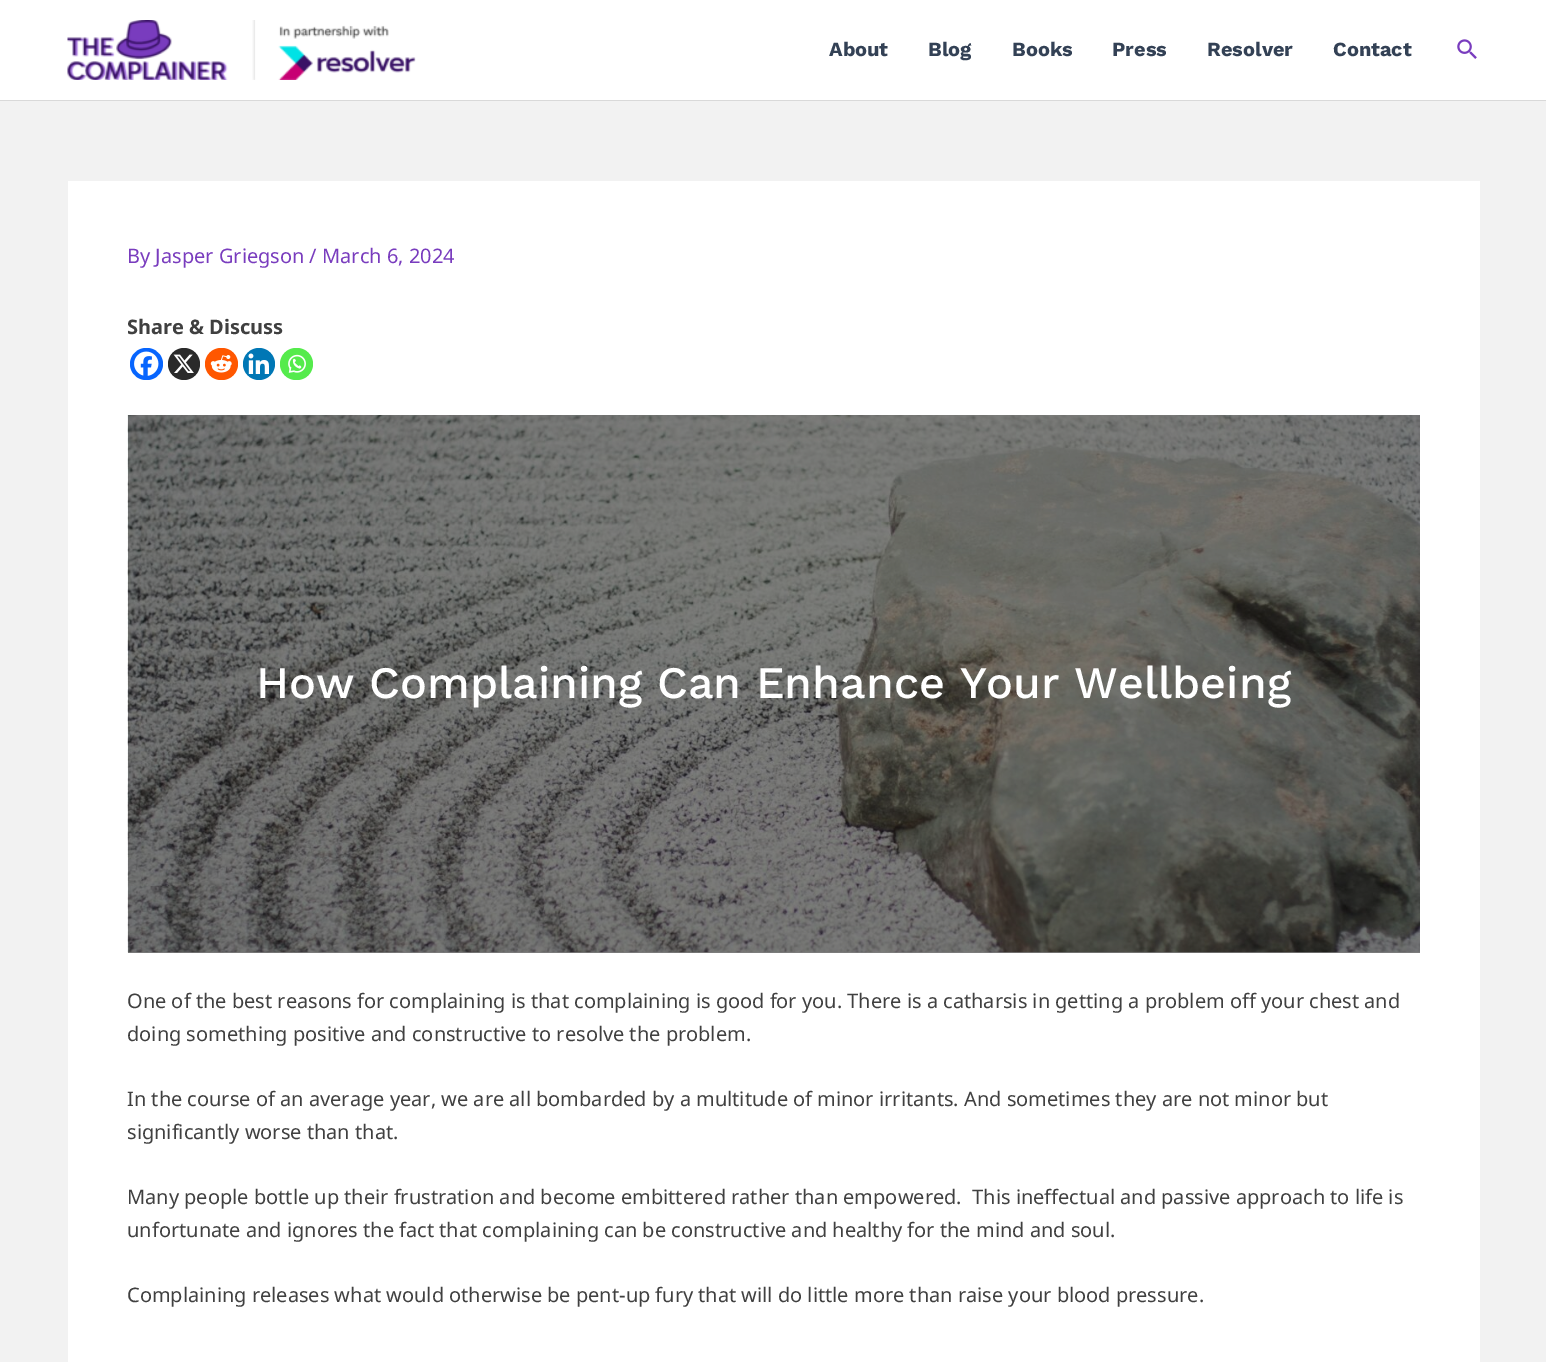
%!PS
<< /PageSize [1546 1362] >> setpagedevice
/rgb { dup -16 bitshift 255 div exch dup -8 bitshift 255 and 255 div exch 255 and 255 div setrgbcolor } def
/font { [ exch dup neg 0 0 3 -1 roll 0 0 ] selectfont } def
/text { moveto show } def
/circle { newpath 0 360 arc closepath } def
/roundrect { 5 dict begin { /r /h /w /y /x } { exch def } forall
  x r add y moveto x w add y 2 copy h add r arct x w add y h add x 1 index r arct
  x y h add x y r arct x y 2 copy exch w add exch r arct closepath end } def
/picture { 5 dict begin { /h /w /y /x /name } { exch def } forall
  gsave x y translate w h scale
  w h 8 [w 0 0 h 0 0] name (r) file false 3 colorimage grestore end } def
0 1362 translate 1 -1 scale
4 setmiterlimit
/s1 { /WorkSans-Bold 20 font 16#334155 rgb } def
/s2 { /NotoSans-Regular 20 font 16#793CBE rgb } def
/s3 { /NotoSans-Bold 20 font 16#404040 rgb } def
/s4 { /WorkSans-Medium 45 font 16#FFFFFF rgb } def
/s5 { /NotoSans-Regular 20 font 16#404040 rgb } def
16#F2F2F2 rgb
0 0 1546 1362 rectfill
16#FFFFFF rgb
0 0 1546 100 rectfill
16#D9D9D9 rgb
0 100 1546 1 rectfill
(pic1.raw) 67 20 349 60 picture
s1
(About) 829 56 text
(Blog) 928 56 text
(Books) 1012 56 text
(Press) 1112 56 text
(Resolver) 1207 56 text
(Contact) 1333 56 text
(pic2.raw) 1457 39 20 20 picture
16#FFFFFF rgb
68 181 1412 1181 rectfill
16#808080 rgb
128 952 1292 1 rectfill
s2
(By Jasper Griegson / March 6, 2024) 127 263 text
s3
(Share & Discuss) 127 334 text
16#0765FE rgb
130 348 33 32 16 roundrect fill
(pic3.raw) 134 351 25 25 picture
16#2A2A2A rgb
184 364 16 circle fill
(pic4.raw) 173 354 21 19 picture
16#FF5700 rgb
205 348 33 32 16 roundrect fill
(pic5.raw) 210 355 22 18 picture
16#0077B5 rgb
259 364 16 circle fill
(pic6.raw) 248 353 21 21 picture
16#55EB4C rgb
280 348 33 32 16 roundrect fill
(pic7.raw) 288 354 18 19 picture
(pic8.raw) 127 415 1293 538 picture
s4
(How Complaining Can Enhance Your Wellbeing) 256 698 text
s5
(One of the best reasons for complaining is that complaining is good for you. There is a catharsis in getting a problem off your chest and) 127 1008 text
(doing something positive and constructive to resolve the problem.) 127 1041 text
(In the course of an average year, we are all bombarded by a multitude of minor irritants. And sometimes they are not minor but) 127 1106 text
(significantly worse than that.) 127 1139 text
(Many people bottle up their frustration and become embittered rather than empowered.  This ineffectual and passive approach to life is) 127 1204 text
(unfortunate and ignores the fact that complaining can be constructive and healthy for the mind and soul.) 127 1237 text
(Complaining releases what would otherwise be pent-up fury that will do little more than raise your blood pressure.) 127 1302 text
showpage
